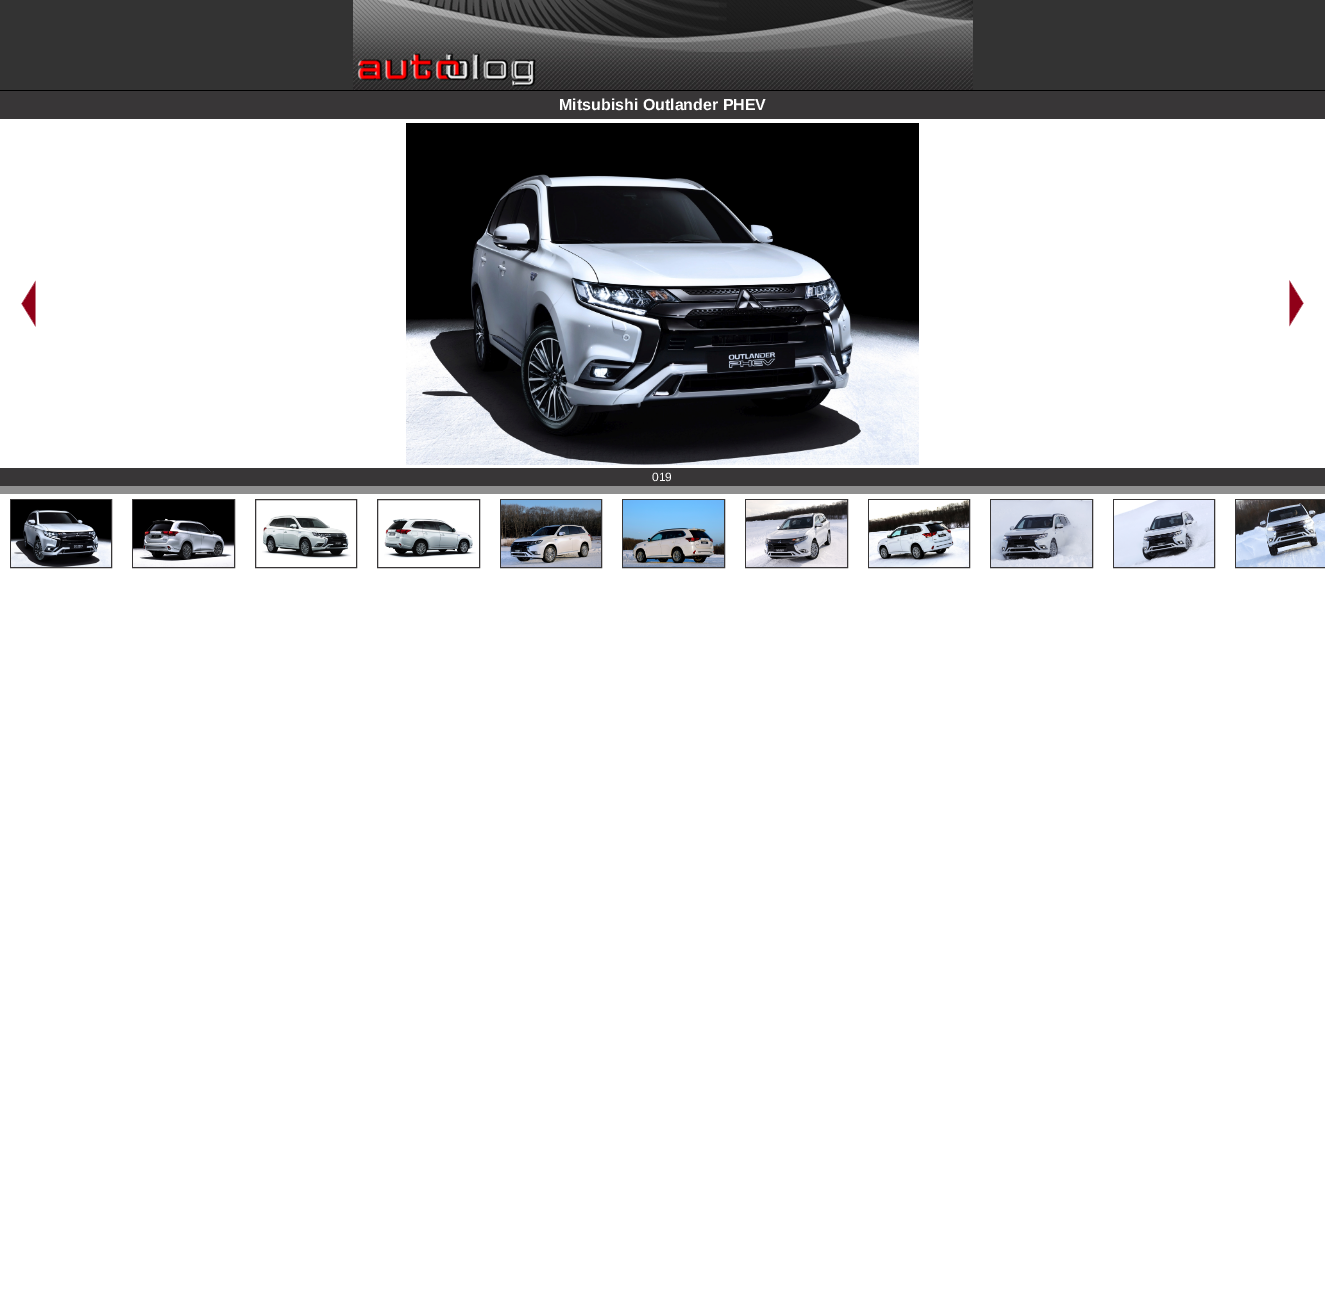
%!PS
<< /PageSize [1325 1315] >> setpagedevice
/rgb { dup -16 bitshift 255 div exch dup -8 bitshift 255 and 255 div exch 255 and 255 div setrgbcolor } def
/font { [ exch dup neg 0 0 3 -1 roll 0 0 ] selectfont } def
/text { moveto show } def
/picture { 5 dict begin { /h /w /y /x /name } { exch def } forall
  gsave x y translate w h scale
  w h 8 [w 0 0 h 0 0] name (r) file false 3 colorimage grestore end } def
0 1315 translate 1 -1 scale
4 setmiterlimit
/s1 { /LiberationSans-Bold 16 font 16#FFFFFF rgb } def
/s2 { /LiberationSans-Regular 12 font 16#FFFFFF rgb } def
16#FFFFFF rgb
0 0 1325 1315 rectfill
16#333333 rgb
0 0 1325 90 rectfill
(pic1.raw) 353 0 620 90 picture
16#383637 rgb
0 91 1325 28 rectfill
16#000000 rgb
0 90 1325 1 rectfill
s1
(Mitsubishi Outlander PHEV) 559 110 text
(pic2.raw) 21 280 15 47 picture
(pic3.raw) 406 123 513 342 picture
(pic4.raw) 1289 280 15 47 picture
16#383637 rgb
0 468 1325 18 rectfill
s2
(019) 652 481 text
16#909090 rgb
0 486 1325 8 rectfill
16#383637 rgb
10.5 499.5 101 68 rectstroke
(pic5.raw) 11 500 100 67 picture
132.5 499.5 102 68 rectstroke
(pic6.raw) 133 500 101 67 picture
255.5 499.5 101 68 rectstroke
(pic7.raw) 262 515 89 44 picture
377.5 499.5 102 68 rectstroke
(pic8.raw) 384 518 92 40 picture
500.5 499.5 101 68 rectstroke
(pic9.raw) 501 500 100 67 picture
622.5 499.5 102 68 rectstroke
(pic10.raw) 623 500 101 67 picture
745.5 499.5 102 68 rectstroke
(pic11.raw) 746 500 101 67 picture
868.5 499.5 101 68 rectstroke
(pic12.raw) 869 500 100 67 picture
990.5 499.5 102 68 rectstroke
(pic13.raw) 991 500 101 67 picture
1113.5 499.5 101 68 rectstroke
(pic14.raw) 1114 500 100 67 picture
1235.5 499.5 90 68 rectstroke
(pic15.raw) 1236 500 89 67 picture
showpage
